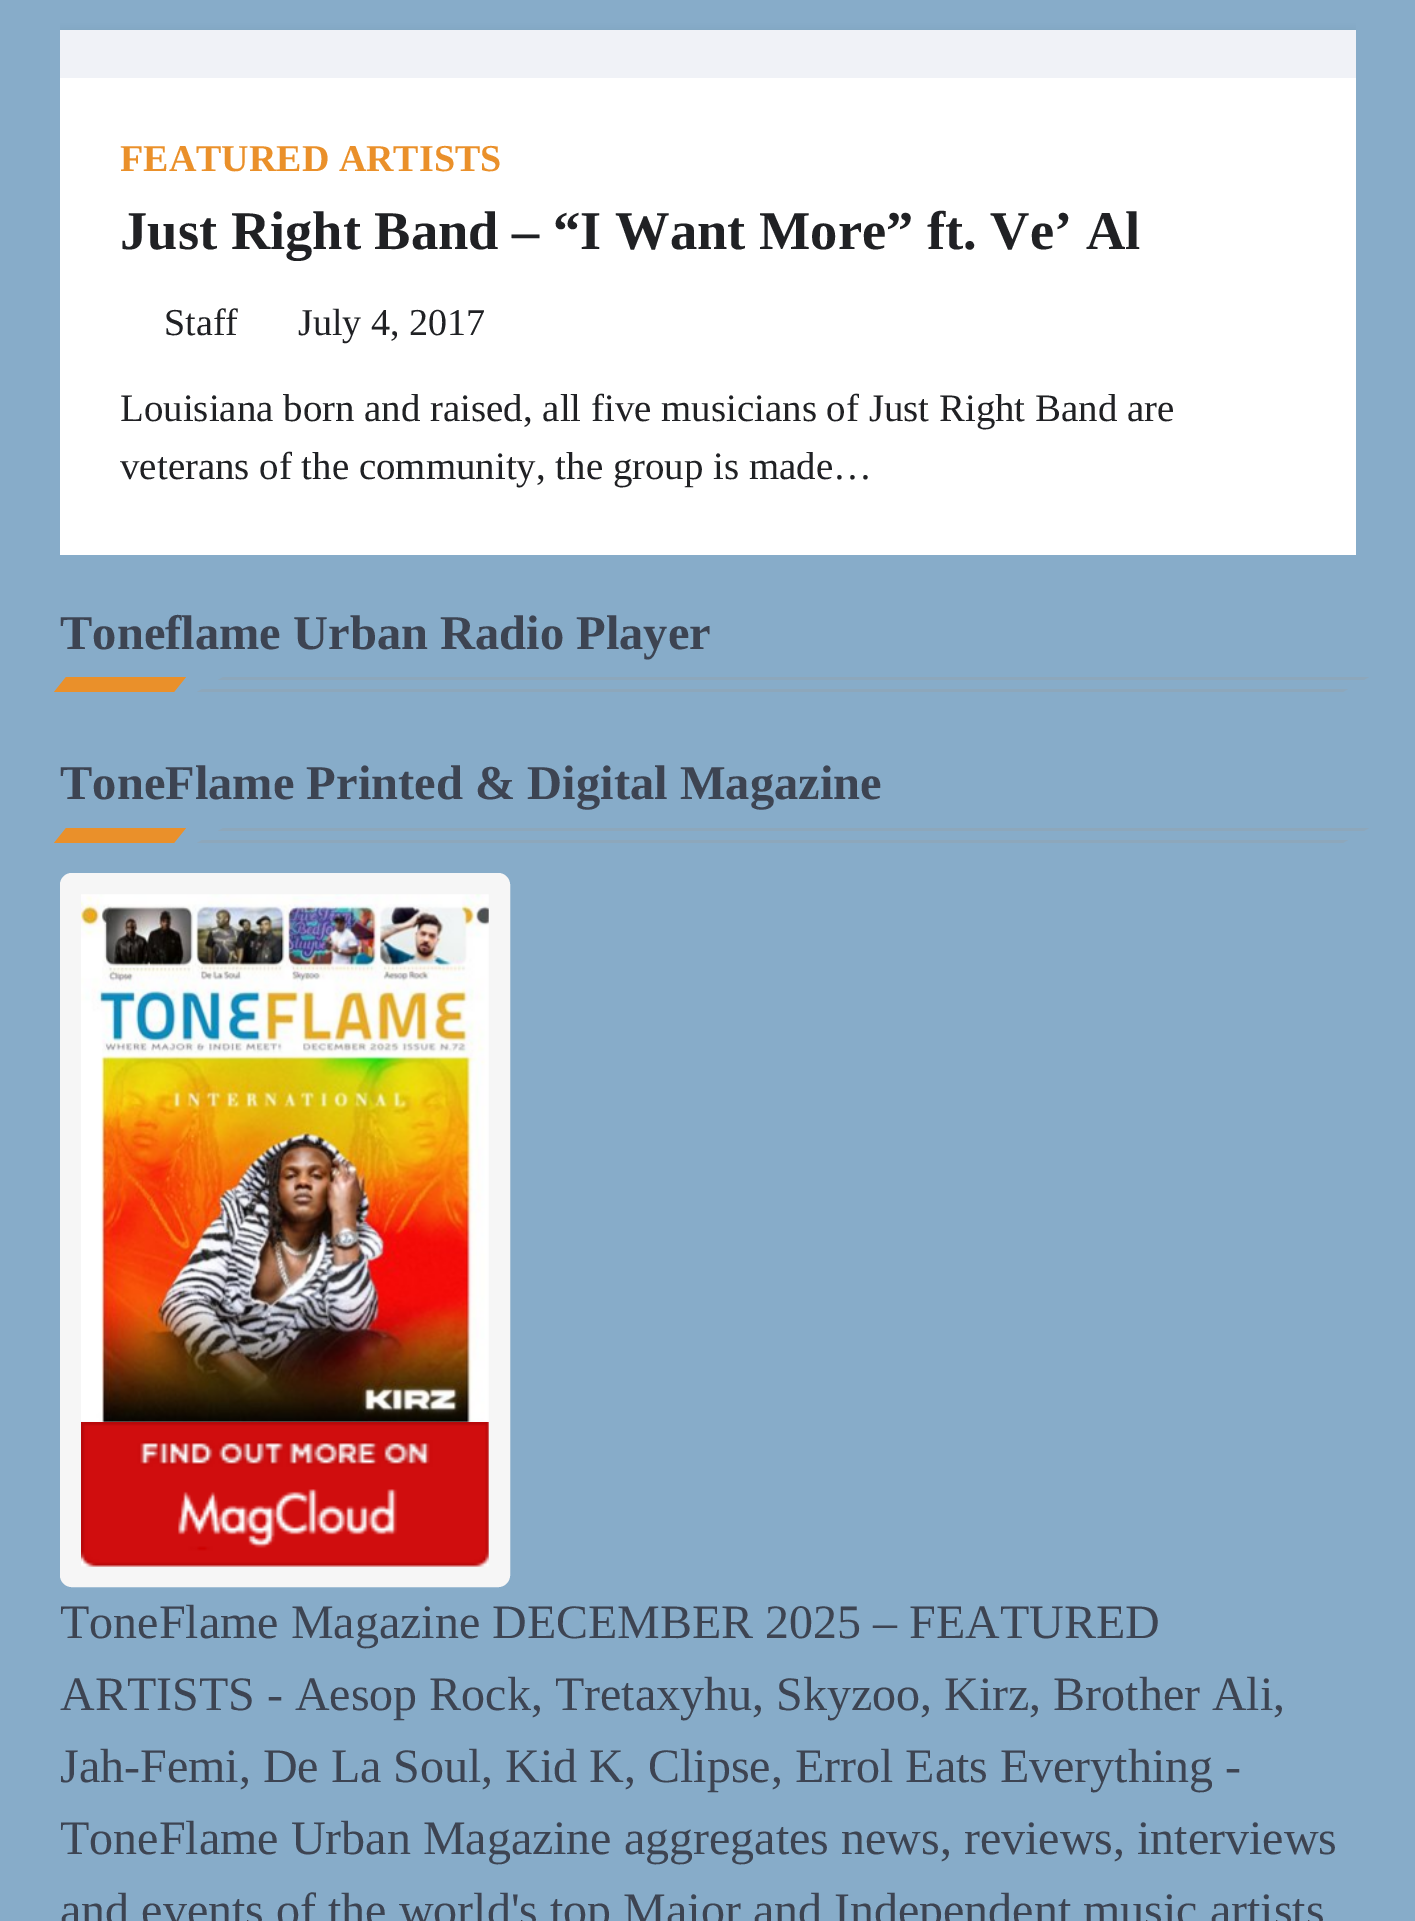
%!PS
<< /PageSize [1415 1921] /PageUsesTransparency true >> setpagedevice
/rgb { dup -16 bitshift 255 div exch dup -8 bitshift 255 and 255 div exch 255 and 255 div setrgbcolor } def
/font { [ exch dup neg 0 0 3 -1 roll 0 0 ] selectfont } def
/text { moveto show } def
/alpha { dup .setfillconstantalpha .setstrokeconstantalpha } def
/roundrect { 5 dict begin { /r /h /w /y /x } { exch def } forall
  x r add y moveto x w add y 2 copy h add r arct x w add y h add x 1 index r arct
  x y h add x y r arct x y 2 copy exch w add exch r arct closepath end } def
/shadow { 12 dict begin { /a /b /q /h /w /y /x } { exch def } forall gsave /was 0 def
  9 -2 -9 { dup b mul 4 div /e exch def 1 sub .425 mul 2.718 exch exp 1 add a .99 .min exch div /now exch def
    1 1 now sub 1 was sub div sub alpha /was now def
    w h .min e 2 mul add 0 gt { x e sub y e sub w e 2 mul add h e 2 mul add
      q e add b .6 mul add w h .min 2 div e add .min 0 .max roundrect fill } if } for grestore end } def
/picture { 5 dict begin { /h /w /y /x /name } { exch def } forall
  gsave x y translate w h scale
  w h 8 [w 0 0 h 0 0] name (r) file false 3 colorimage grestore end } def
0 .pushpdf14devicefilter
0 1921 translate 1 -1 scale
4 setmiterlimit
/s1 { /LiberationSerif-Bold 38 font 16#EA902A rgb } def
/s2 { /LiberationSerif-Bold 54.5 font 16#202124 rgb } def
/s3 { /LiberationSerif-Regular 38 font 16#202124 rgb } def
/s4 { /LiberationSerif-Regular 38.9 font 16#202124 rgb } def
/s5 { /LiberationSerif-Bold 48.5 font 16#3D4452 rgb } def
/s6 { /LiberationSerif-Regular 48 font 16#3D4452 rgb } def
16#87ACC9 rgb
0 0 1415 1921 rectfill
gsave
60 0 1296 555 rectclip
16#000000 rgb
60 33 1296 525 0 4.5 0.1 shadow
grestore
16#FFFFFF rgb
60 78 1296 477 rectfill
16#F0F2F7 rgb
60 30 1296 48 rectfill
s1
(FEATURED ARTISTS) 120 171 text
s2
(Just Right Band – “I Want More” ft. Ve’ Al) 120 249 text
s3
(Staff) 164 335 text
(July 4, 2017) 298 335 text
s4
(Louisiana born and raised, all five musicians of Just Right Band are) 120 421 text
(veterans of the community, the group is made…) 120 479 text
s5
(Toneflame Urban Radio Player) 60 649 text
16#EA902A rgb
66 677 moveto 186 677 lineto 174 692 lineto 54 692 lineto closepath fill
16#8DA7BB rgb
223 677 moveto 1369 677 lineto 1364 680 lineto 218 680 lineto closepath fill
202 689 moveto 1348 689 lineto 1343 692 lineto 197 692 lineto closepath fill
s5
(ToneFlame Printed & Digital Magazine) 60 799 text
16#EA902A rgb
66 828 moveto 186 828 lineto 174 843 lineto 54 843 lineto closepath fill
16#8DA7BB rgb
223 828 moveto 1369 828 lineto 1364 831 lineto 218 831 lineto closepath fill
202 840 moveto 1348 840 lineto 1343 843 lineto 197 843 lineto closepath fill
16#F6F6F6 rgb
70.5 883.5 429 693 1.5 roundrect gsave fill grestore
21 setlinewidth
stroke
(pic1.raw) 81 894 408 530 picture
(pic2.raw) 81 1422 408 145 picture
s6
(ToneFlame Magazine DECEMBER 2025 – FEATURED) 60 1638 text
(ARTISTS - Aesop Rock, Tretaxyhu, Skyzoo, Kirz, Brother Ali,) 60 1710 text
(Jah-Femi, De La Soul, Kid K, Clipse, Errol Eats Everything -) 60 1782 text
(ToneFlame Urban Magazine aggregates news, reviews, interviews) 60 1854 text
(and events of the world's top Major and Independent music artists) 60 1926 text
.poppdf14devicefilter showpage
